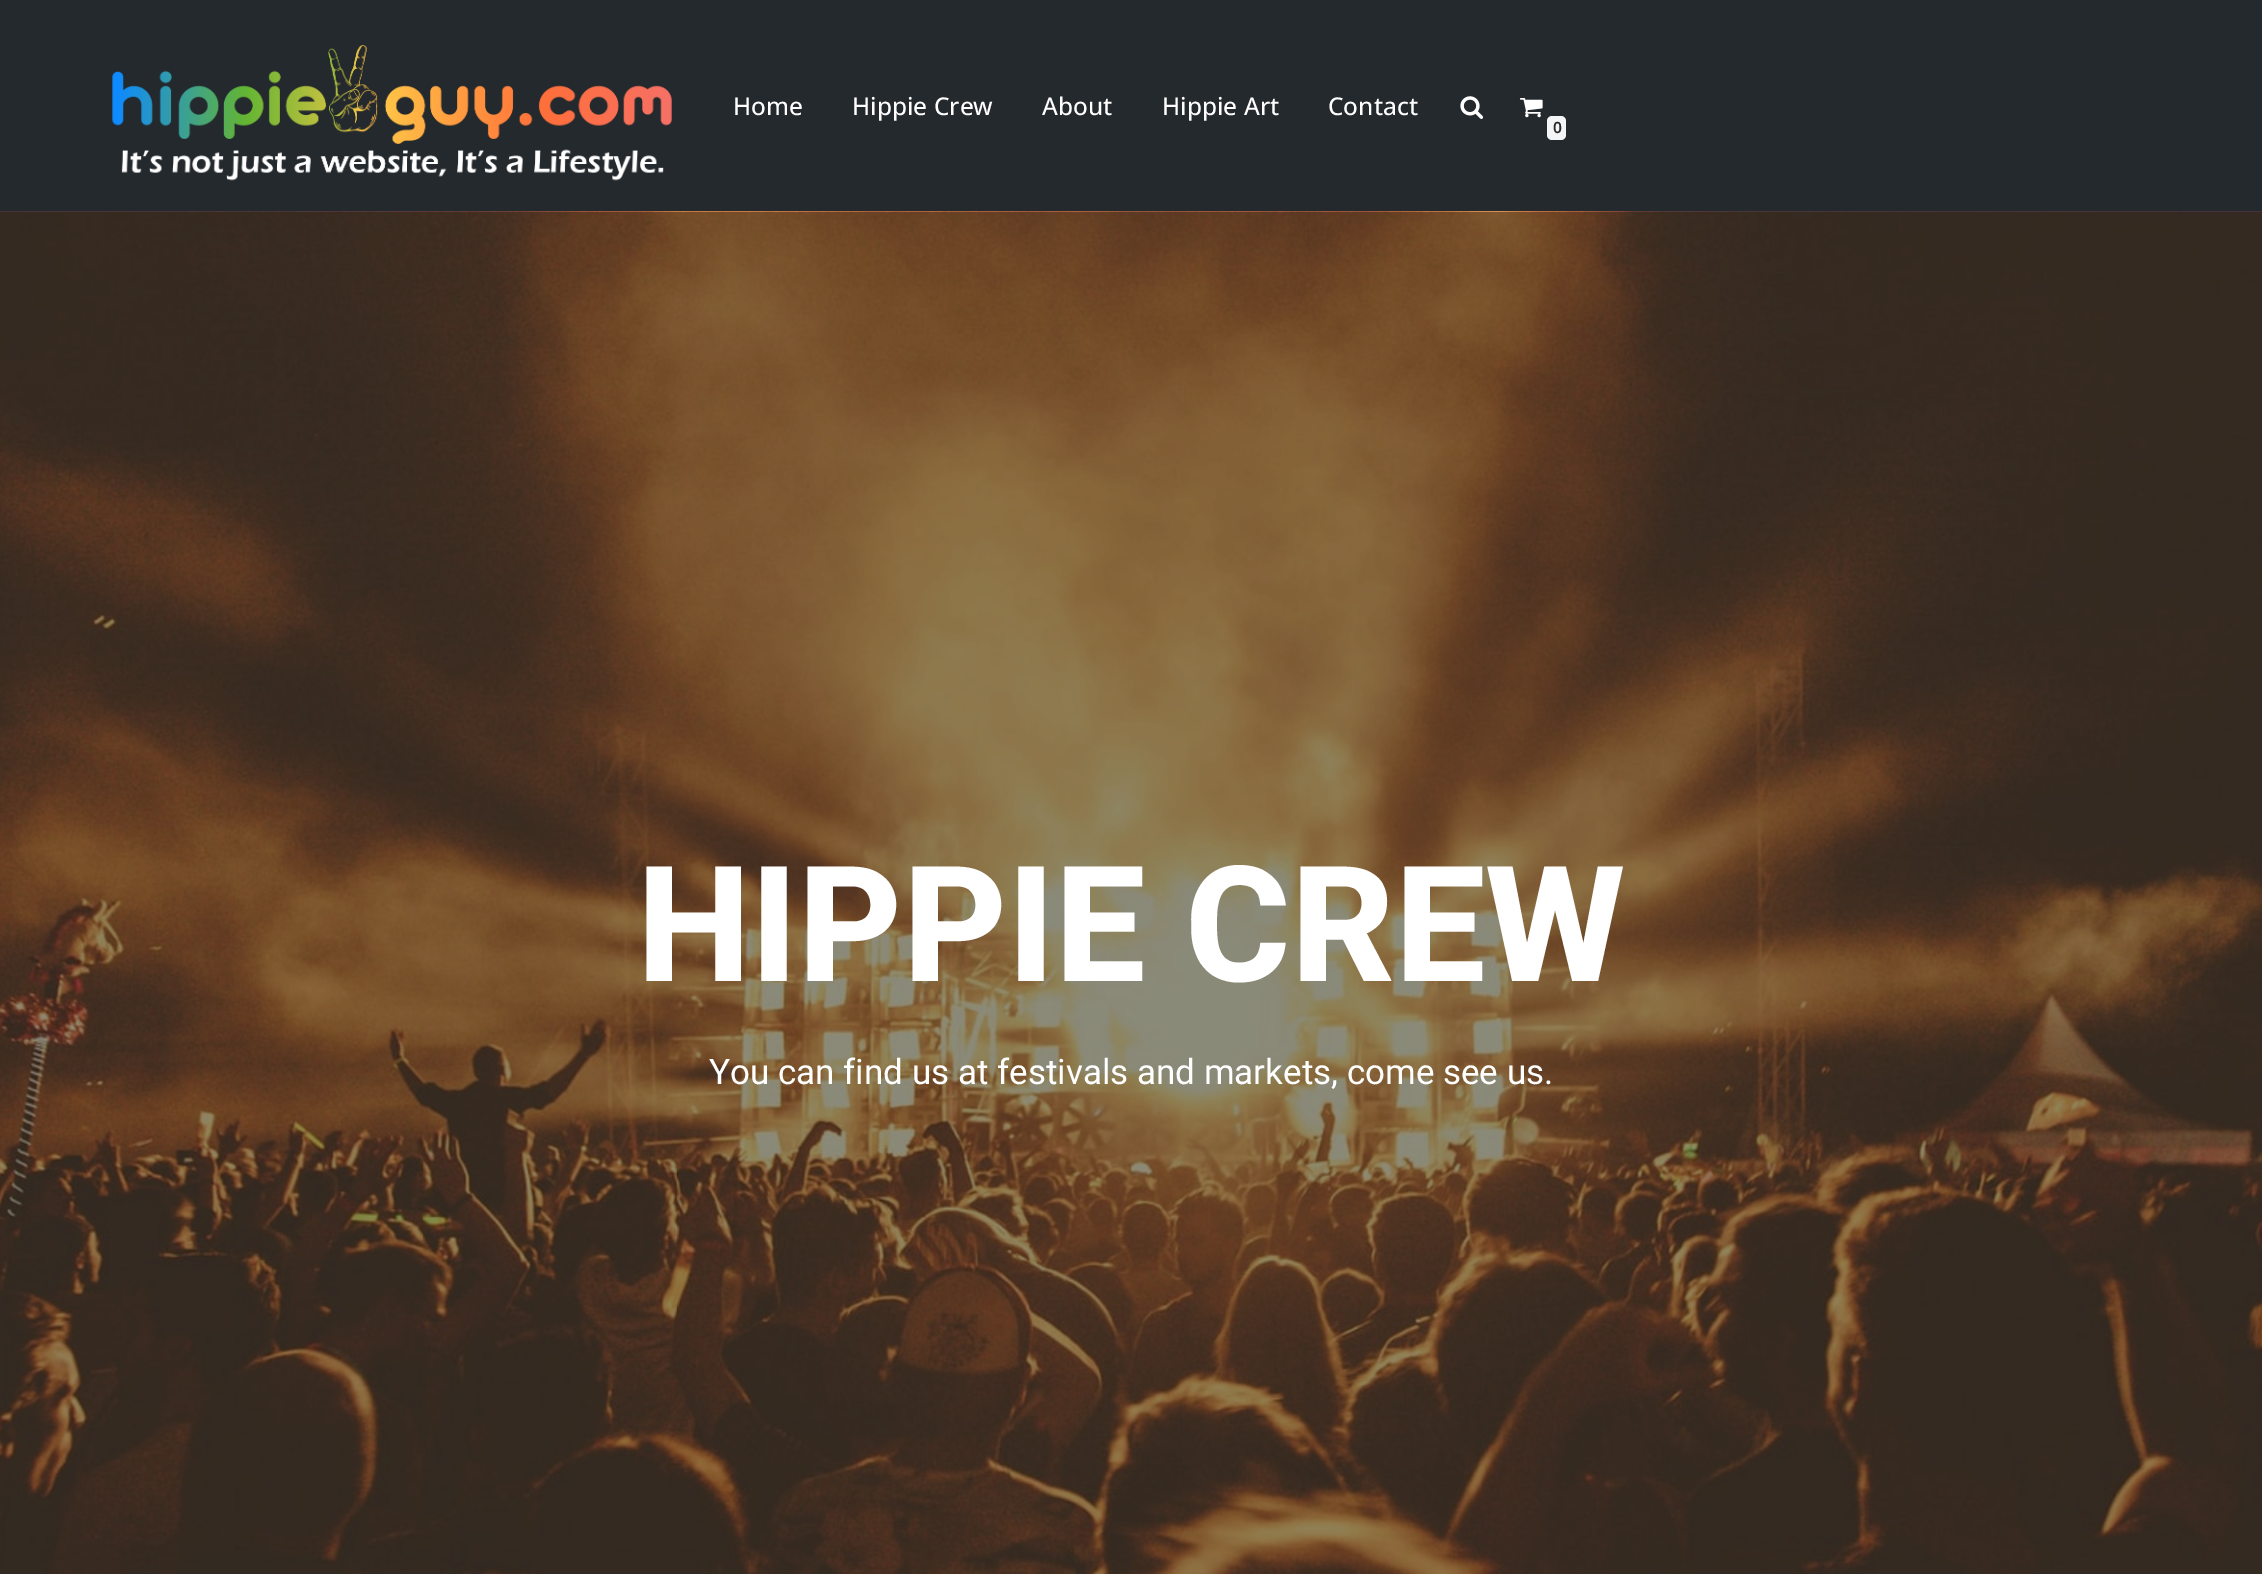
%!PS
<< /PageSize [2262 1574] >> setpagedevice
/rgb { dup -16 bitshift 255 div exch dup -8 bitshift 255 and 255 div exch 255 and 255 div setrgbcolor } def
/font { [ exch dup neg 0 0 3 -1 roll 0 0 ] selectfont } def
/text { moveto show } def
/roundrect { 5 dict begin { /r /h /w /y /x } { exch def } forall
  x r add y moveto x w add y 2 copy h add r arct x w add y h add x 1 index r arct
  x y h add x y r arct x y 2 copy exch w add exch r arct closepath end } def
/picture { 5 dict begin { /h /w /y /x /name } { exch def } forall
  gsave x y translate w h scale
  w h 8 [w 0 0 h 0 0] name (r) file false 3 colorimage grestore end } def
0 1574 translate 1 -1 scale
4 setmiterlimit
/s1 { /OpenSans-Medium 24.5 font 16#FFFFFF rgb } def
/s2 { /OpenSans-Bold 15 font 16#272626 rgb } def
/s3 { /Roboto-ExtraBold 161 font 16#FFFFFF rgb } def
/s4 { /Roboto-Regular 35 font 16#FFFFFF rgb } def
16#24292E rgb
0 0 2262 1574 rectfill
(pic1.raw) 112 45 560 136 picture
s1
(Home) 733 115 text
(Hippie Crew) 852 115 text
(About) 1042 115 text
(Hippie Art) 1162 115 text
(Contact) 1328 115 text
(pic2.raw) 1460 96 24 23 picture
(pic3.raw) 1519 98 24 20 picture
16#F4F5F7 rgb
1547 116 19 24 5 roundrect fill
s2
(0) 1553 133 text
(pic4.raw) 0 211 2262 1363 picture
s3
(HIPPIE CREW) 637 981 text
s4
(You can find us at festivals and markets, come see us.) 709 1084 text
showpage
